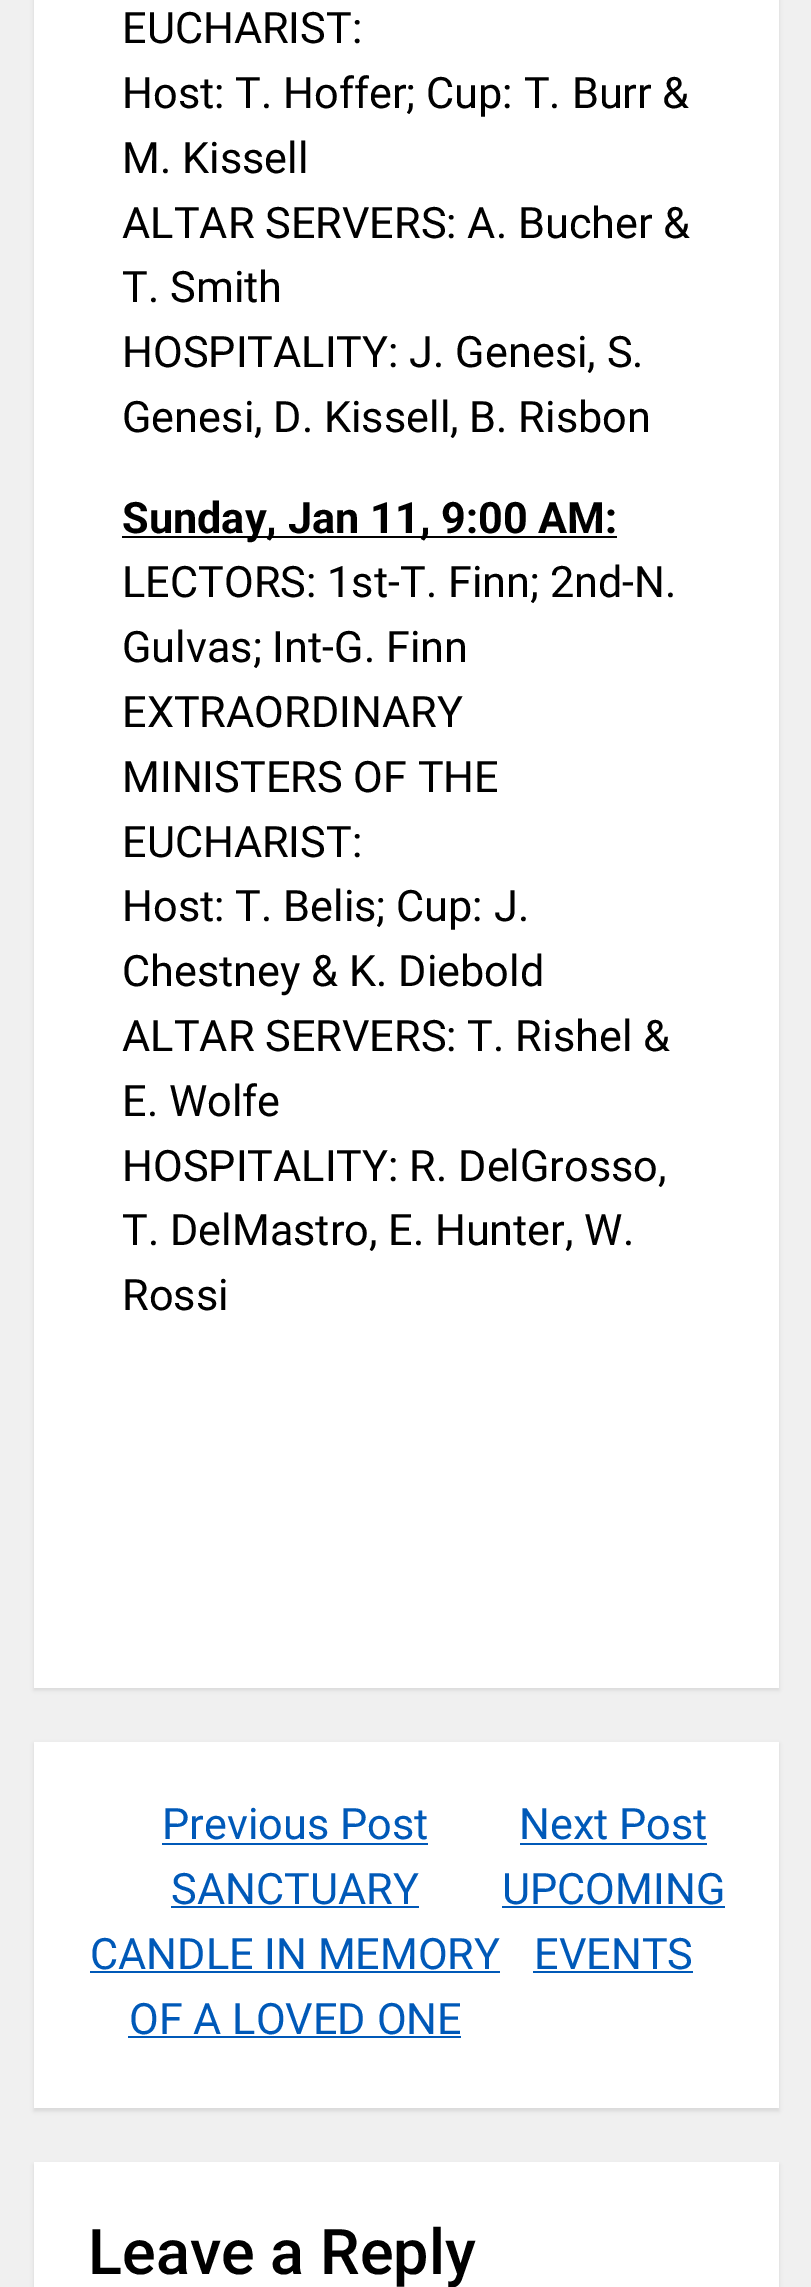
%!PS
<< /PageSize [811 2287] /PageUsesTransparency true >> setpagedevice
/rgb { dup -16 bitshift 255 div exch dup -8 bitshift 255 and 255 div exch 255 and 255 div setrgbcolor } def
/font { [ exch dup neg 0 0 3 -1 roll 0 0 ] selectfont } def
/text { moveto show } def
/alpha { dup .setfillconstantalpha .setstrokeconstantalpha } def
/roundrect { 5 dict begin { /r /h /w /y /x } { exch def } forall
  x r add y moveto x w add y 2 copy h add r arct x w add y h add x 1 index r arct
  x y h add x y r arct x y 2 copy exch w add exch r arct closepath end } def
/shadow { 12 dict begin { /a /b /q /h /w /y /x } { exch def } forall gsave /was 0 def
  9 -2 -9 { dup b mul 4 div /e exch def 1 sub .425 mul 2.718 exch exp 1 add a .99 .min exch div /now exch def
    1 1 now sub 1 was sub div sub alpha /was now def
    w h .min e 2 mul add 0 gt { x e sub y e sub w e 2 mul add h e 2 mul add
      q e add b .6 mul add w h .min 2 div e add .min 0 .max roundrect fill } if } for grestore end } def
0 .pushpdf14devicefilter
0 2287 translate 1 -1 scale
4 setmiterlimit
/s1 { /Roboto-Regular 43.25 font 16#000000 rgb } def
/s2 { /Roboto-Bold 43.25 font 16#000000 rgb } def
/s3 { /Roboto-Regular 43.25 font 16#0059B8 rgb } def
/s4 { /Roboto-Medium 63 font 16#000000 rgb } def
16#F0F0F0 rgb
0 0 811 2287 rectfill
16#000000 rgb
34 -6 745 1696 0 2 0.1 shadow
16#FFFFFF rgb
34 0 745 1688 rectfill
s1
(EUCHARIST:) 122 43 text
(Host: T. Hoffer; Cup: T. Burr &) 122 108 text
(M. Kissell) 122 173 text
(ALTAR SERVERS: A. Bucher &) 122 238 text
(T. Smith) 122 302 text
(HOSPITALITY: J. Genesi, S.) 122 367 text
(Genesi, D. Kissell, B. Risbon) 122 432 text
122 536 495 2 rectfill
s2
(Sunday, Jan 11, 9:00 AM:) 122 533 text
s1
(LECTORS: 1st-T. Finn; 2nd-N.) 122 597 text
(Gulvas; Int-G. Finn) 122 662 text
(EXTRAORDINARY) 122 727 text
(MINISTERS OF THE) 122 792 text
(EUCHARIST:) 122 857 text
(Host: T. Belis; Cup: J.) 122 921 text
(Chestney & K. Diebold) 122 986 text
(ALTAR SERVERS: T. Rishel &) 122 1051 text
(E. Wolfe) 122 1116 text
(HOSPITALITY: R. DelGrosso,) 122 1181 text
(T. DelMastro, E. Hunter, W.) 122 1245 text
(Rossi) 122 1310 text
34 1744 745 367 0 2 0.1 shadow
16#FFFFFF rgb
34 1742 745 366 rectfill
s3
(Previous Post) 162 1839 text
162 1843 266 2 rectfill
(SANCTUARY) 171 1904 text
171 1906 248 2 rectfill
(CANDLE IN MEMORY) 90 1969 text
90 1971 410 2 rectfill
(OF A LOVED ONE) 129 2034 text
128 2036 333 2 rectfill
(Next Post) 519 1839 text
520 1843 187 2 rectfill
(UPCOMING) 502 1904 text
502 1906 223 2 rectfill
(EVENTS) 534 1969 text
533 1971 160 2 rectfill
16#000000 rgb
34 2165 745 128 0 2 0.1 shadow
16#FFFFFF rgb
34 2162 745 125 rectfill
s4
(Leave a Reply) 88 2274 text
.poppdf14devicefilter showpage
